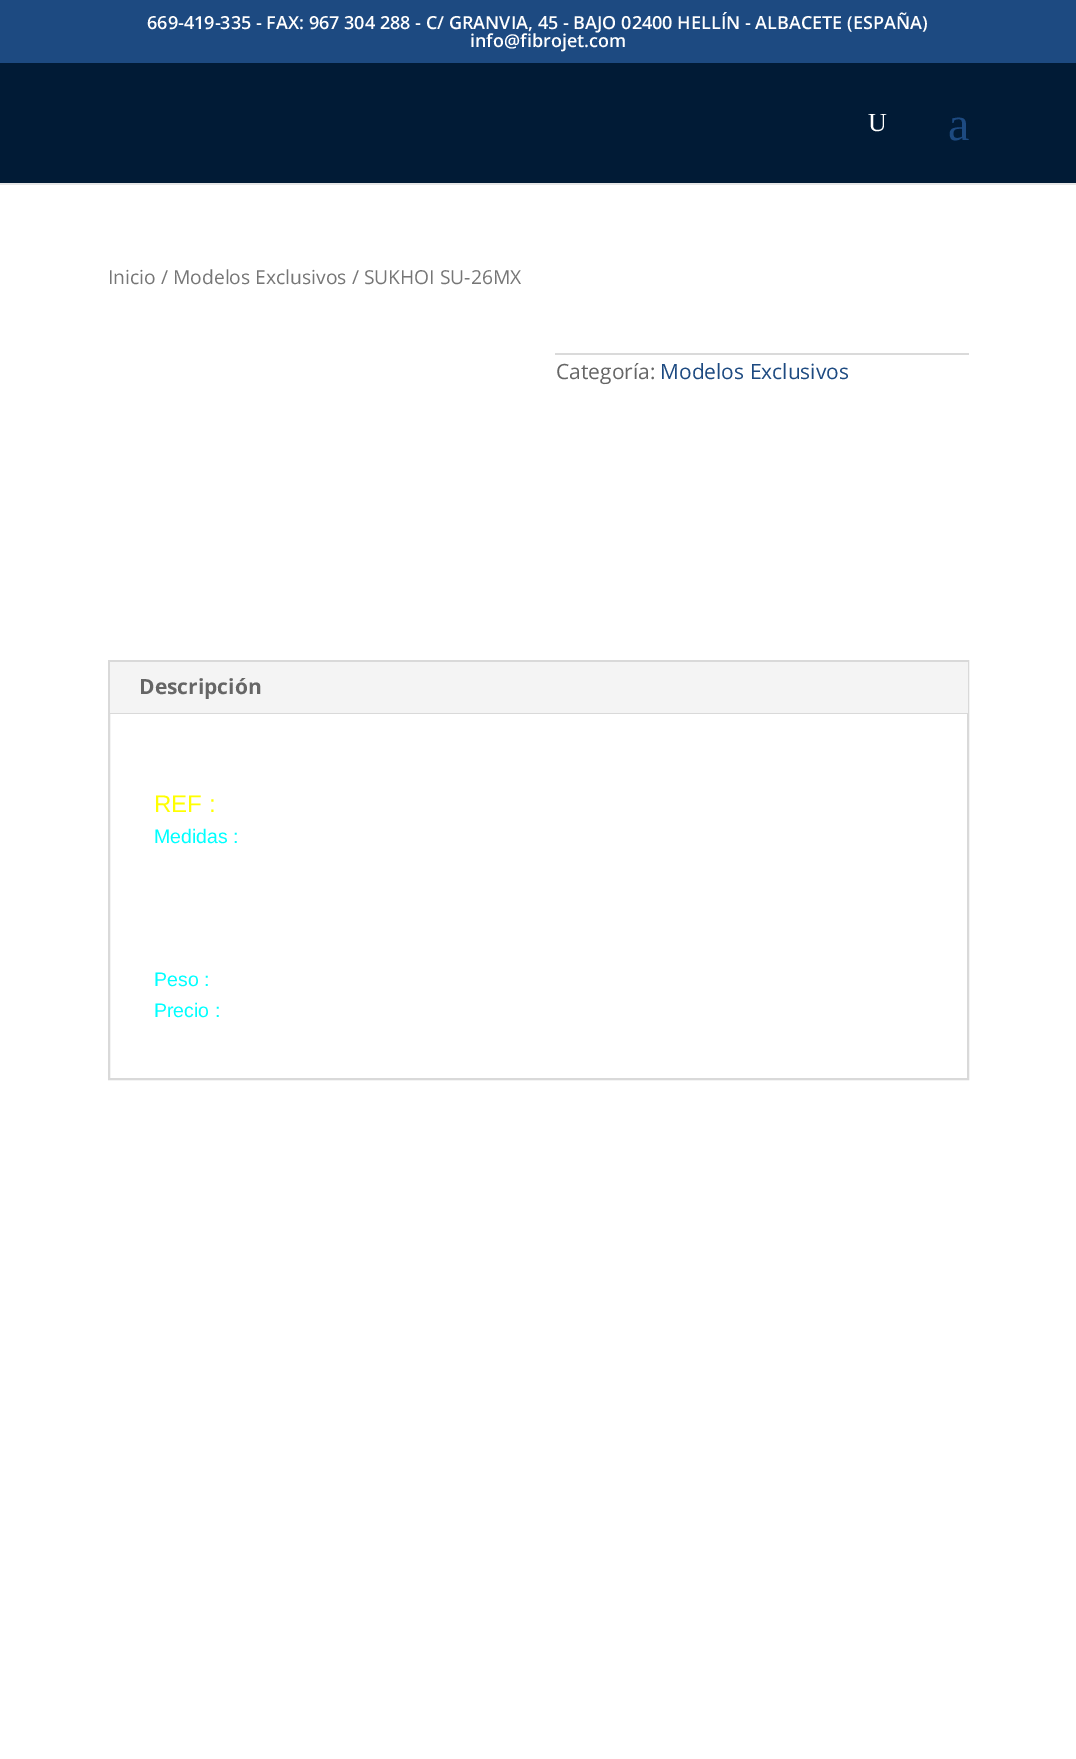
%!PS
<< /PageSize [1076 1759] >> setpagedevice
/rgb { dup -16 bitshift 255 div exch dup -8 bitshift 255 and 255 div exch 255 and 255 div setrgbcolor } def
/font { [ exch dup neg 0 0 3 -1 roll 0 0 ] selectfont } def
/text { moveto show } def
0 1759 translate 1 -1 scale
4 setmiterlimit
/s1 { /OpenSans-SemiBold 18 font 16#FFFFFF rgb } def
/s2 { /LiberationSerif-Regular 26 font 16#FFFFFF rgb } def
/s3 { /LiberationSerif-Regular 48 font 16#1D4A81 rgb } def
/s4 { /OpenSans-Regular 19.3 font 16#767676 rgb } def
/s5 { /OpenSans-Regular 21 font 16#666666 rgb } def
/s6 { /OpenSans-Regular 21 font 16#1D4A81 rgb } def
/s7 { /OpenSans-Bold 21 font 16#666666 rgb } def
/s8 { /LiberationSans-Regular 24 font 16#FFFF00 rgb } def
/s9 { /LiberationSans-Regular 19.5 font 16#00FFFF rgb } def
16#FFFFFF rgb
0 0 1076 1759 rectfill
16#1D4A81 rgb
0 0 1076 63 rectfill
s1
(669-419-335 - FAX: 967 304 288 - C/ GRANVIA, 45 - BAJO 02400 HELLÍN - ALBACETE \(ESPAÑA\)) 147 29 text
(info@fibrojet.com) 470 47 text
16#E6E6E6 rgb
0 183 1076 2 rectfill
16#011B36 rgb
0 63 1076 120 rectfill
s2
(U) 868 131 text
s3
(a) 948 140 text
s4
(Inicio / Modelos Exclusivos / SUKHOI SU-26MX) 108 284 text
16#DADADA rgb
555 353 414 2 rectfill
s5
(Categoría:) 556 379 text
s6
(Modelos Exclusivos) 660 379 text
16#D9D9D9 rgb
2 setlinewidth
109 661 859 418 rectstroke
16#F4F4F4 rgb
110 662 858 51 rectfill
s7
(Descripción) 139 694 text
16#D9D9D9 rgb
110 713 858 1 rectfill
s8
(REF :) 154 812 text
s9
(Medidas :) 154 843 text
(Peso :) 154 986 text
(Precio :) 154 1017 text
showpage
